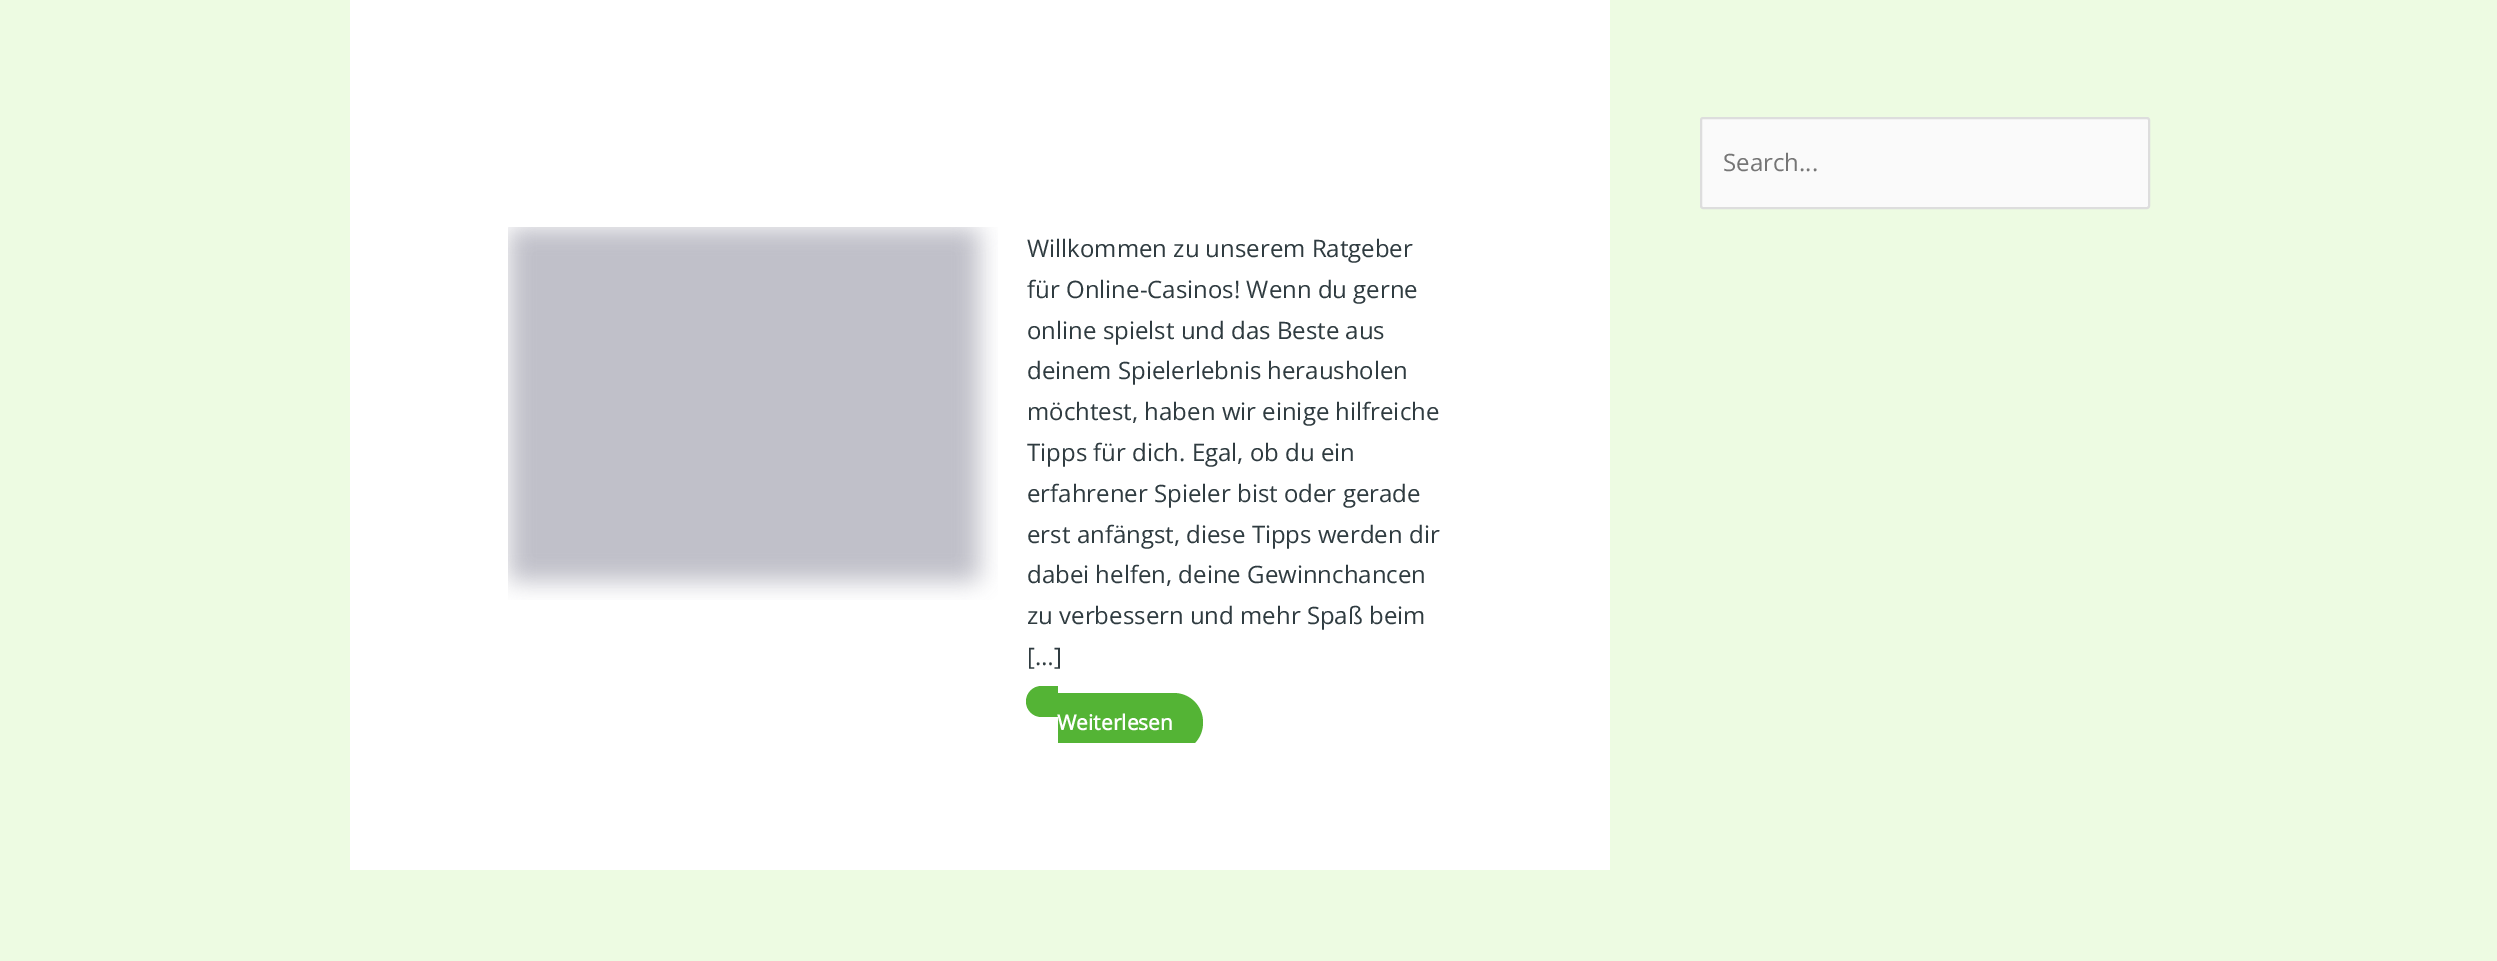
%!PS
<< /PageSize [2497 961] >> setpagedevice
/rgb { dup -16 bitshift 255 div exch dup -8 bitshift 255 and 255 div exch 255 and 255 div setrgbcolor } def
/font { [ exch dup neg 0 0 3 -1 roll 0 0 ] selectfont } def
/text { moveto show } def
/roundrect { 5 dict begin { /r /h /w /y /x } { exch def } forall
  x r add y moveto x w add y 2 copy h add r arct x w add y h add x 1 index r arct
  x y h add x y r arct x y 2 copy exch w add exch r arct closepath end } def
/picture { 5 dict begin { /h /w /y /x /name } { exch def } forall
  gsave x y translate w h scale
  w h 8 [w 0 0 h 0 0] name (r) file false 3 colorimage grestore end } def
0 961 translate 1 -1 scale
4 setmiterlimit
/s1 { /OpenSans-Regular 24 font 16#757575 rgb } def
/s2 { /OpenSans-Regular 24 font 16#2F3B40 rgb } def
/s3 { /OpenSans-Bold 21 font 16#FFFFFF rgb } def
16#EDFBE2 rgb
0 0 2497 961 rectfill
16#FAFAFA rgb
1701 118 448 90 2 roundrect gsave fill grestore
16#DDDDDD rgb
2 setlinewidth
stroke
s1
(Search...) 1723 171 text
16#FFFFFF rgb
350 0 1260 870 rectfill
(pic1.raw) 508 227 490 373 picture
s2
(Willkommen zu unserem Ratgeber) 1027 257 text
(für Online-Casinos! Wenn du gerne) 1027 298 text
(online spielst und das Beste aus) 1027 339 text
(deinem Spielerlebnis herausholen) 1027 379 text
(möchtest, haben wir einige hilfreiche) 1027 420 text
(Tipps für dich. Egal, ob du ein) 1027 461 text
(erfahrener Spieler bist oder gerade) 1027 502 text
(erst anfängst, diese Tipps werden dir) 1027 543 text
(dabei helfen, deine Gewinnchancen) 1027 583 text
(zu verbessern und mehr Spaß beim) 1027 624 text
([…]) 1027 665 text
16#54B435 rgb
1041.5 686 moveto 1058 686 lineto 1058 717 lineto 1041.5 717 lineto 1033 717 1026 710 1026 701.5 curveto 1026 693 1033 686 1041.5 686 curveto closepath fill
gsave
509 228 940 515 rectclip
1058 693 moveto 1173.5 693 lineto 1190 693 1203 706 1203 722.5 curveto 1203 739 1190 752 1173.5 752 curveto 1058 752 lineto closepath fill
grestore
s3
(Weiterlesen) 1057 730 text
showpage
